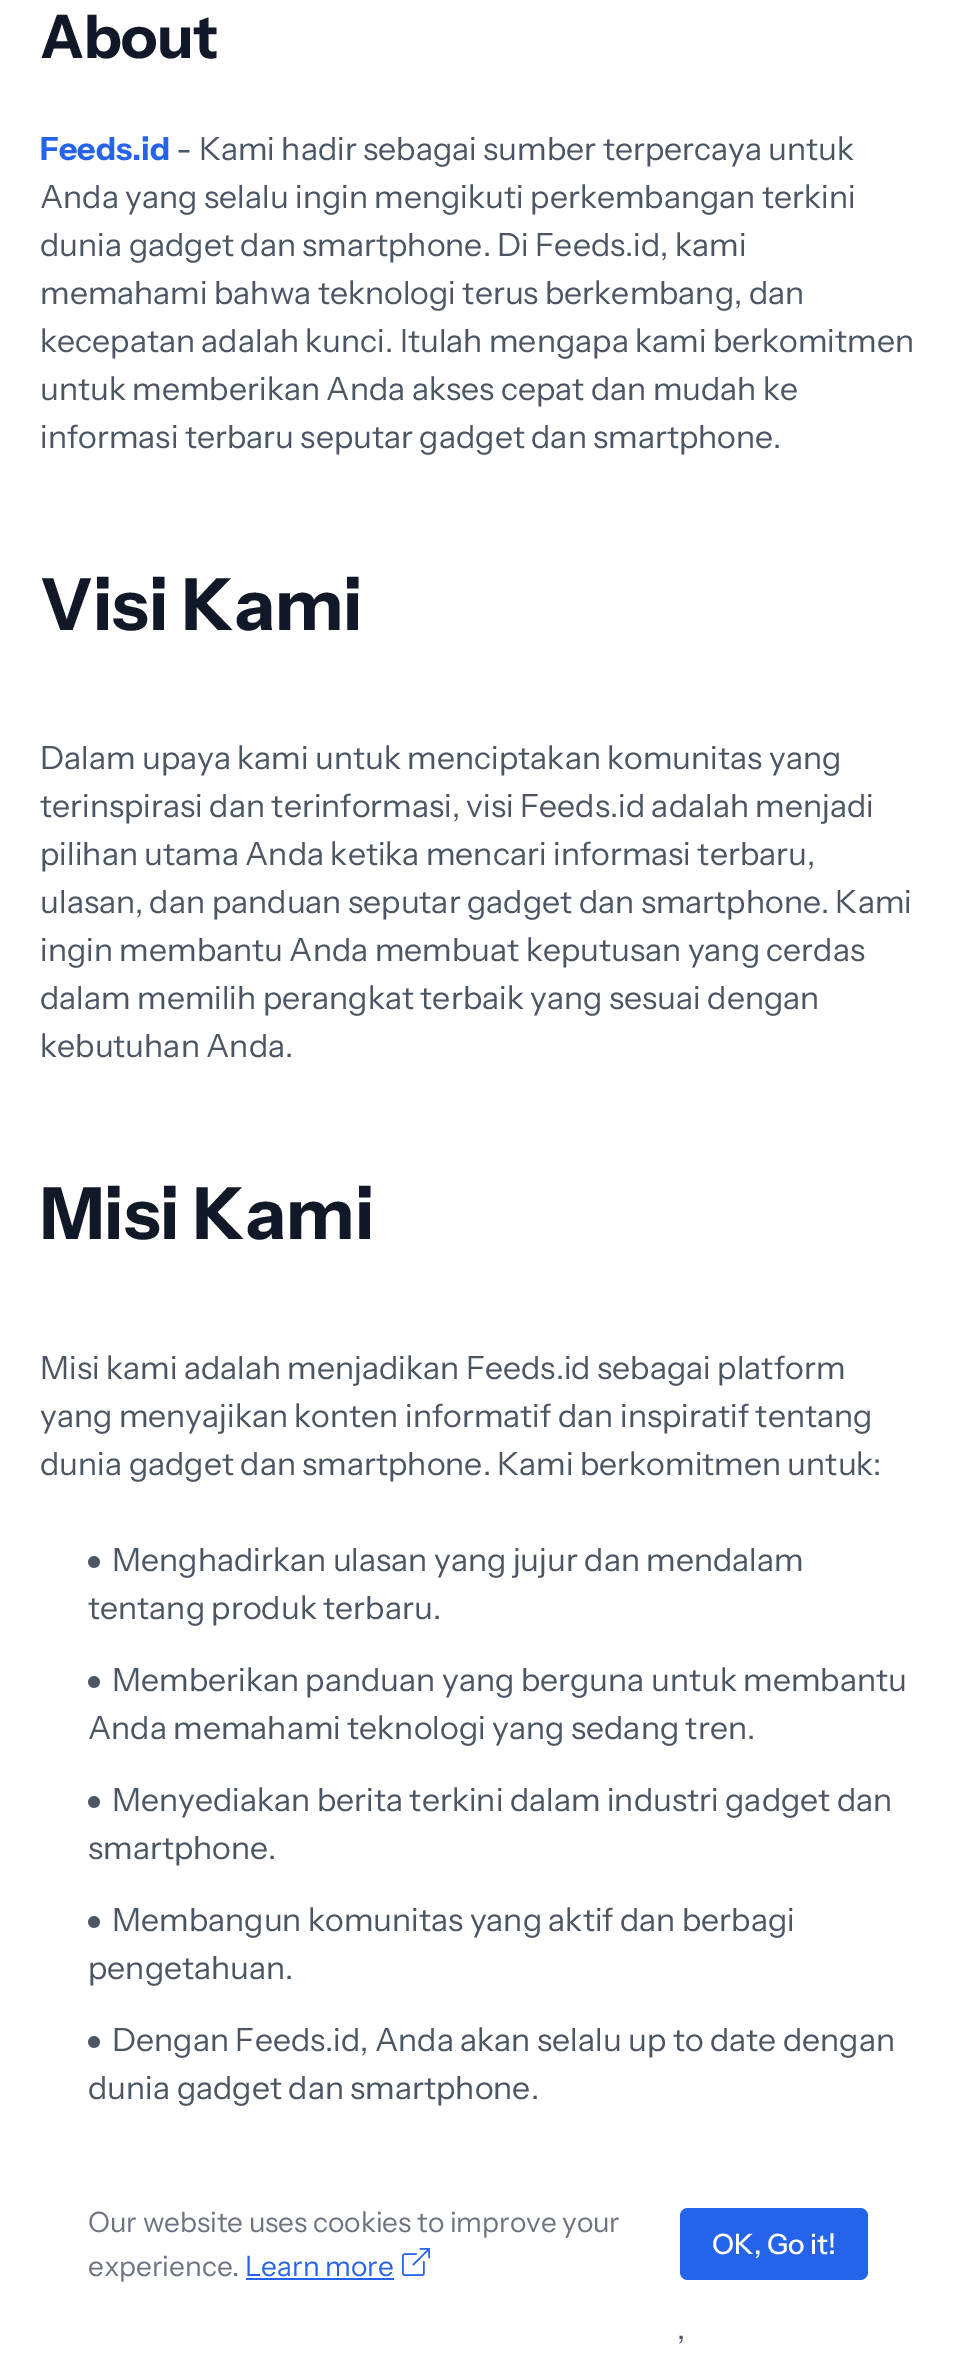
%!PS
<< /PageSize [956 2373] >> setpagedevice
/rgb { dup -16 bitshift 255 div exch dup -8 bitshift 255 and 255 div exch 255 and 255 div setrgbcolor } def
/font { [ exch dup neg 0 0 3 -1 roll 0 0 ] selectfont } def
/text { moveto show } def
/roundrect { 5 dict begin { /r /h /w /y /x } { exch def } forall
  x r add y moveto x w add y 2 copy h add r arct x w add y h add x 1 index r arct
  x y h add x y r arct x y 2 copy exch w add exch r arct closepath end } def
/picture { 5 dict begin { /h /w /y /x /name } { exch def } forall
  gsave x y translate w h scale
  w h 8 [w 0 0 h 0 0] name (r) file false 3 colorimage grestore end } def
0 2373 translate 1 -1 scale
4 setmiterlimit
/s1 { /InstrumentSans-Bold 32 font 16#2563EB rgb } def
/s2 { /InstrumentSans-Regular 32 font 16#4B5563 rgb } def
/s3 { /InstrumentSans-Bold 72 font 16#111827 rgb } def
/s4 { /InstrumentSans-Regular 28 font 16#6B7280 rgb } def
/s5 { /InstrumentSans-Regular 28 font 16#2563EB rgb } def
/s6 { /InstrumentSans-Medium 28 font 16#FFFFFF rgb } def
16#FFFFFF rgb
0 0 956 2373 rectfill
/InstrumentSans-Bold 60 font
16#111827 rgb
40 58 moveto -0.5 0 (About) ashow
s1
(Feeds.id) 40 160 text
s2
(- Kami hadir sebagai sumber terpercaya untuk) 176 160 text
(Anda yang selalu ingin mengikuti perkembangan terkini) 40 208 text
(dunia gadget dan smartphone. Di Feeds.id, kami) 40 256 text
(memahami bahwa teknologi terus berkembang, dan) 40 304 text
(kecepatan adalah kunci. Itulah mengapa kami berkomitmen) 40 352 text
(untuk memberikan Anda akses cepat dan mudah ke) 40 400 text
(informasi terbaru seputar gadget dan smartphone.) 40 448 text
s3
(Visi Kami) 40 630 text
s2
(Dalam upaya kami untuk menciptakan komunitas yang) 40 769 text
(terinspirasi dan terinformasi, visi Feeds.id adalah menjadi) 40 817 text
(pilihan utama Anda ketika mencari informasi terbaru,) 40 865 text
(ulasan, dan panduan seputar gadget dan smartphone. Kami) 40 913 text
(ingin membantu Anda membuat keputusan yang cerdas) 40 961 text
(dalam memilih perangkat terbaik yang sesuai dengan) 40 1009 text
(kebutuhan Anda.) 40 1057 text
s3
(Misi Kami) 40 1239 text
s2
(Misi kami adalah menjadikan Feeds.id sebagai platform) 40 1379 text
(yang menyajikan konten informatif dan inspiratif tentang) 40 1427 text
(dunia gadget dan smartphone. Kami berkomitmen untuk:) 40 1475 text
(pic1.raw) 88 1556 12 12 picture
(Menghadirkan ulasan yang jujur dan mendalam) 112 1571 text
(tentang produk terbaru.) 88 1619 text
(pic1.raw) 88 1676 12 12 picture
(Memberikan panduan yang berguna untuk membantu) 112 1691 text
(Anda memahami teknologi yang sedang tren.) 88 1739 text
(pic1.raw) 88 1796 12 12 picture
(Menyediakan berita terkini dalam industri gadget dan) 112 1811 text
(smartphone.) 88 1859 text
(pic1.raw) 88 1916 12 12 picture
(Membangun komunitas yang aktif dan berbagi) 112 1931 text
(pengetahuan.) 88 1979 text
(pic1.raw) 88 2036 12 12 picture
(Dengan Feeds.id, Anda akan selalu up to date dengan) 112 2051 text
(dunia gadget dan smartphone.) 88 2099 text
(,) 677 2339 text
s4
(Our website uses cookies to improve your) 88 2232 text
(experience.) 88 2276 text
s5
(Learn more) 245 2276 text
246 2278 148 2 rectfill
(pic2.raw) 402 2248 28 28 picture
680 2208 188 72 8 roundrect fill
s6
(OK, Go it!) 712 2254 text
showpage
